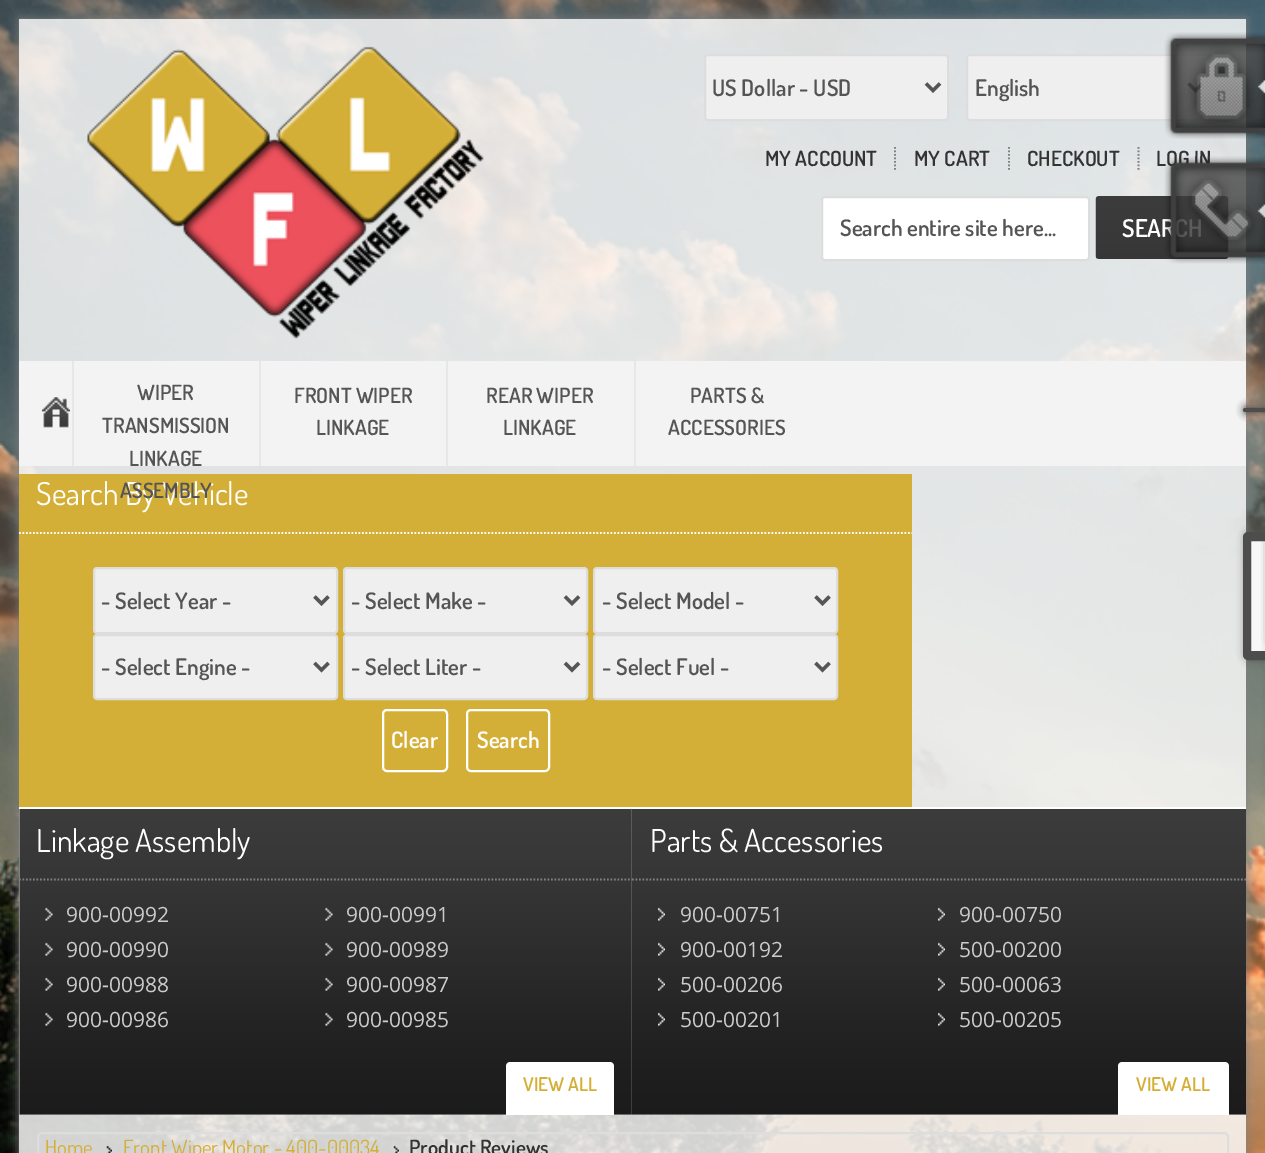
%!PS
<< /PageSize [1265 1153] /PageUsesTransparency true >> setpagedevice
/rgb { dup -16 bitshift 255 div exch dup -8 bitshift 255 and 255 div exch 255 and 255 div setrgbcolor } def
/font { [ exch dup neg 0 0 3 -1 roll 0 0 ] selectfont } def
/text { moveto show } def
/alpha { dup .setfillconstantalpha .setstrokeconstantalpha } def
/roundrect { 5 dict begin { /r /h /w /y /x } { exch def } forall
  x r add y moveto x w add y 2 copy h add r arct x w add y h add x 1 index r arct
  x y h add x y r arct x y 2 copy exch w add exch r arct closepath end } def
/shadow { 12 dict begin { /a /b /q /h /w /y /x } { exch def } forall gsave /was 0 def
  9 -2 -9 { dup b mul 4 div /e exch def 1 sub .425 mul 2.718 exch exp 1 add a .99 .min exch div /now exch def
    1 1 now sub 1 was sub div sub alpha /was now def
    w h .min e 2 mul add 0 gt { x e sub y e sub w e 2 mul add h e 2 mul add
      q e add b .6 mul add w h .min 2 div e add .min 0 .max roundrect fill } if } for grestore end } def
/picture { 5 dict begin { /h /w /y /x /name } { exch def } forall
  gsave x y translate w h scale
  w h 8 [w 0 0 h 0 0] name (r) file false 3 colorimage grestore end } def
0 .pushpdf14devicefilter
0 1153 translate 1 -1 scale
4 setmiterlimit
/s1 { /Dosis-SemiBold 22.75 font 16#555555 rgb } def
/s2 { /Dosis-SemiBold 21 font 16#333333 rgb } def
/s3 { /Dosis-SemiBold 24.5 font 16#FFFFFF rgb } def
/s4 { /Dosis-SemiBold 21 font 16#555555 rgb } def
/s5 { /Dosis-Regular 31.5 font 16#FFFFFF rgb } def
/s6 { /Dosis-SemiBold 22.75 font 16#FFFFFF rgb } def
/s7 { /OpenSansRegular-Regular 21 font 16#CCCCCC rgb } def
/s8 { /Dosis-SemiBold 19 font 16#D4AF37 rgb } def
/s9 { /Dosis-Regular 21 font 16#D4AF37 rgb } def
16#FFFFFF rgb
0 0 1265 1153 rectfill
(pic1.raw) 0 0 1265 1153 picture
gsave
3 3 moveto 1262 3 lineto 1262 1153 lineto 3 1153 lineto closepath 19 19 moveto 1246 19 lineto 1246 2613 lineto 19 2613 lineto closepath eoclip newpath
16#808080 rgb
19 19 1227 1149 0 5 1 shadow
grestore
0.82 alpha
19 19 1227 1134 rectfill
1 alpha
(pic2.raw) 87 46 397 293 picture
16#EFEFEF rgb
705 55 243 65 3 roundrect gsave fill grestore
16#DDDDDD rgb
2 setlinewidth
stroke
16#555555 rgb
3.5 setlinewidth
926 83.5 moveto 933 90.5 lineto 940 83.5 lineto stroke
s1
(US Dollar - USD) 712 96 text
16#EFEFEF rgb
967 55 243 65 3 roundrect gsave fill grestore
16#DDDDDD rgb
2 setlinewidth
stroke
16#555555 rgb
3.5 setlinewidth
1188.5 83.5 moveto 1195.5 90.5 lineto 1202.5 83.5 lineto stroke
(English) 975 96 text
16#808080 rgb
1.8 setlinewidth
[1.75 1.75] 0 setdash
895 147 moveto 895 170 lineto stroke
s2
(MY ACCOUNT) 765 166 text
16#808080 rgb
1009 147 moveto 1009 170 lineto stroke
s2
(MY CART) 914 166 text
16#808080 rgb
1138.5 147 moveto 1138.5 170 lineto stroke
s2
(CHECKOUT) 1027 166 text
(LOG IN) 1156 166 text
16#FFFFFF rgb
822 197 267 63 3 roundrect gsave fill grestore
16#DDDDDD rgb
2 setlinewidth
[] 0 setdash
stroke
s1
(Search entire site here...) 840 236 text
(pic3.raw) 1095 196 134 63 picture
s3
(SEAR) 1122 237 text
16#F3F3F3 rgb
19 361 1227 105 rectfill
16#E7E7E7 rgb
72 361 2 105 rectfill
(pic4.raw) 42 397 28 31 picture
259 361 2 105 rectfill
s4
(WIPER) 137 400 text
(TRANSMISSION) 102 433 text
(LINKAGE) 129 466 text
16#D4AF37 rgb
19 474 893 333 rectfill
s5
(Search By Vehicle) 36 505 text
s4
(ASSEMBLY) 120 498 text
16#E7E7E7 rgb
446 361 2 105 rectfill
s4
(FRONT WIPER) 294 403 text
(LINKAGE) 316 435 text
16#E7E7E7 rgb
634 361 2 105 rectfill
s4
(REAR WIPER) 486 403 text
(LINKAGE) 503 435 text
(PARTS &) 690 403 text
(ACCESSORIES) 668 435 text
1246 408 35 4 2 4.5 1 shadow
1246 408 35 4 2 4.5 1 shadow
16#4D4D4D rgb
1245 408 moveto 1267 408 lineto 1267 412 lineto 1245 412 lineto 1244 412 1243 411 1243 410 curveto 1243 409 1244 408 1245 408 curveto closepath fill
16#555555 rgb
1246 532 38 128 5 4.5 1 shadow
16#4D4D4D rgb
1248 533 moveto 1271 533 lineto 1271 659 lineto 1248 659 lineto 1246 659 1244 657 1244 655 curveto 1244 537 lineto 1244 535 1246 533 1248 533 curveto closepath stroke
16#F8F8F8 rgb
1247.5 537.5 moveto 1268.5 537.5 lineto 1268.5 654.5 lineto 1247.5 654.5 lineto closepath gsave fill grestore
16#4D4D4D rgb
7 setlinewidth
stroke
16#555555 rgb
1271 135 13 639 5 4.5 1 shadow
(pic6.raw) 1164 156 101 108 picture
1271 11 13 631 5 4.5 1 shadow
(pic5.raw) 1164 32 101 107 picture
16#FFFFFF rgb
1.8 setlinewidth
[1.75 1.75] 0 setdash
19 533 moveto 912 533 lineto stroke
16#EFEFEF rgb
94 568 243 65 3 roundrect gsave fill grestore
16#DDDDDD rgb
2 setlinewidth
[] 0 setdash
stroke
16#555555 rgb
3.5 setlinewidth
314.5 596.5 moveto 321.5 603.5 lineto 328.5 596.5 lineto stroke
s1
(- Select Year -) 101 609 text
16#EFEFEF rgb
344 568 243 65 3 roundrect gsave fill grestore
16#DDDDDD rgb
2 setlinewidth
stroke
16#555555 rgb
3.5 setlinewidth
565 596.5 moveto 572 603.5 lineto 579 596.5 lineto stroke
(- Select Make -) 351 609 text
16#EFEFEF rgb
594 568 243 65 3 roundrect gsave fill grestore
16#DDDDDD rgb
2 setlinewidth
stroke
16#555555 rgb
3.5 setlinewidth
815.5 596.5 moveto 822.5 603.5 lineto 829.5 596.5 lineto stroke
(- Select Model -) 602 609 text
16#EFEFEF rgb
94 635 243 64 3 roundrect gsave fill grestore
16#DDDDDD rgb
2 setlinewidth
stroke
16#555555 rgb
3.5 setlinewidth
314.5 663 moveto 321.5 670 lineto 328.5 663 lineto stroke
(- Select Engine -) 101 675 text
16#EFEFEF rgb
344 635 243 64 3 roundrect gsave fill grestore
16#DDDDDD rgb
2 setlinewidth
stroke
16#555555 rgb
3.5 setlinewidth
565 663 moveto 572 670 lineto 579 663 lineto stroke
(- Select Liter -) 351 675 text
16#EFEFEF rgb
594 635 243 64 3 roundrect gsave fill grestore
16#DDDDDD rgb
2 setlinewidth
stroke
16#555555 rgb
3.5 setlinewidth
815.5 663 moveto 822.5 670 lineto 829.5 663 lineto stroke
(- Select Fuel -) 602 675 text
16#FFFFFF rgb
2 setlinewidth
383 710 64 61 4 roundrect stroke
(Clear) 391 748 text
467 710 82 61 4 roundrect stroke
(Search) 477 748 text
(pic7.raw) 19 809 613 306 picture
19 807 613 2 rectfill
16#808080 rgb
1.8 setlinewidth
[1.75 1.75] 0 setdash
19 879.5 moveto 632 879.5 lineto stroke
s5
(Linkage Assembly) 36 852 text
(pic8.raw) 45 907 8 14 picture
s7
(900-00992) 66 922 text
(pic8.raw) 325 907 8 14 picture
(900-00991) 346 922 text
(pic9.raw) 45 942 8 14 picture
(900-00990) 66 957 text
(pic9.raw) 325 942 8 14 picture
(900-00989) 346 957 text
(pic10.raw) 45 977 8 14 picture
(900-00988) 66 992 text
(pic10.raw) 325 977 8 14 picture
(900-00987) 346 992 text
(pic11.raw) 45 1012 8 14 picture
(900-00986) 66 1027 text
(pic11.raw) 325 1012 8 14 picture
(900-00985) 346 1027 text
16#FFFFFF rgb
510 1062 moveto 610 1062 lineto 612 1062 614 1064 614 1066 curveto 614 1115 lineto 506 1115 lineto 506 1066 lineto 506 1064 508 1062 510 1062 curveto closepath fill
s8
(VIEW ALL) 523 1091 text
(pic12.raw) 631 808 615 307 picture
16#FFFFFF rgb
632 807 614 2 rectfill
16#808080 rgb
632 879.5 moveto 1246 879.5 lineto stroke
s5
(Parts & Accessories) 650 852 text
(pic13.raw) 658 907 7 14 picture
s7
(900-00751) 680 922 text
(pic14.raw) 938 907 7 14 picture
(900-00750) 959 922 text
(pic15.raw) 658 942 7 14 picture
(900-00192) 680 957 text
(pic16.raw) 938 942 7 14 picture
(500-00200) 959 957 text
(pic17.raw) 658 977 7 14 picture
(500-00206) 680 992 text
(pic18.raw) 938 977 7 14 picture
(500-00063) 959 992 text
(pic19.raw) 658 1012 7 14 picture
(500-00201) 680 1027 text
(pic20.raw) 938 1012 7 14 picture
(500-00205) 959 1027 text
16#FFFFFF rgb
1122 1062 moveto 1225 1062 lineto 1227 1062 1229 1064 1229 1066 curveto 1229 1115 lineto 1118 1115 lineto 1118 1066 lineto 1118 1064 1120 1062 1122 1062 curveto closepath fill
s8
(VIEW ALL) 1136 1091 text
(pic21.raw) 106 1145 6 8 picture
(pic22.raw) 393 1145 6 8 picture
16#DDDDDD rgb
2 setlinewidth
[] 0 setdash
38 1133 1190 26 4 roundrect stroke
s9
(Home) 45 1155 text
(Front Wiper Motor - 400-00034) 123 1155 text
s2
(Product Reviews) 409 1155 text
.poppdf14devicefilter showpage
